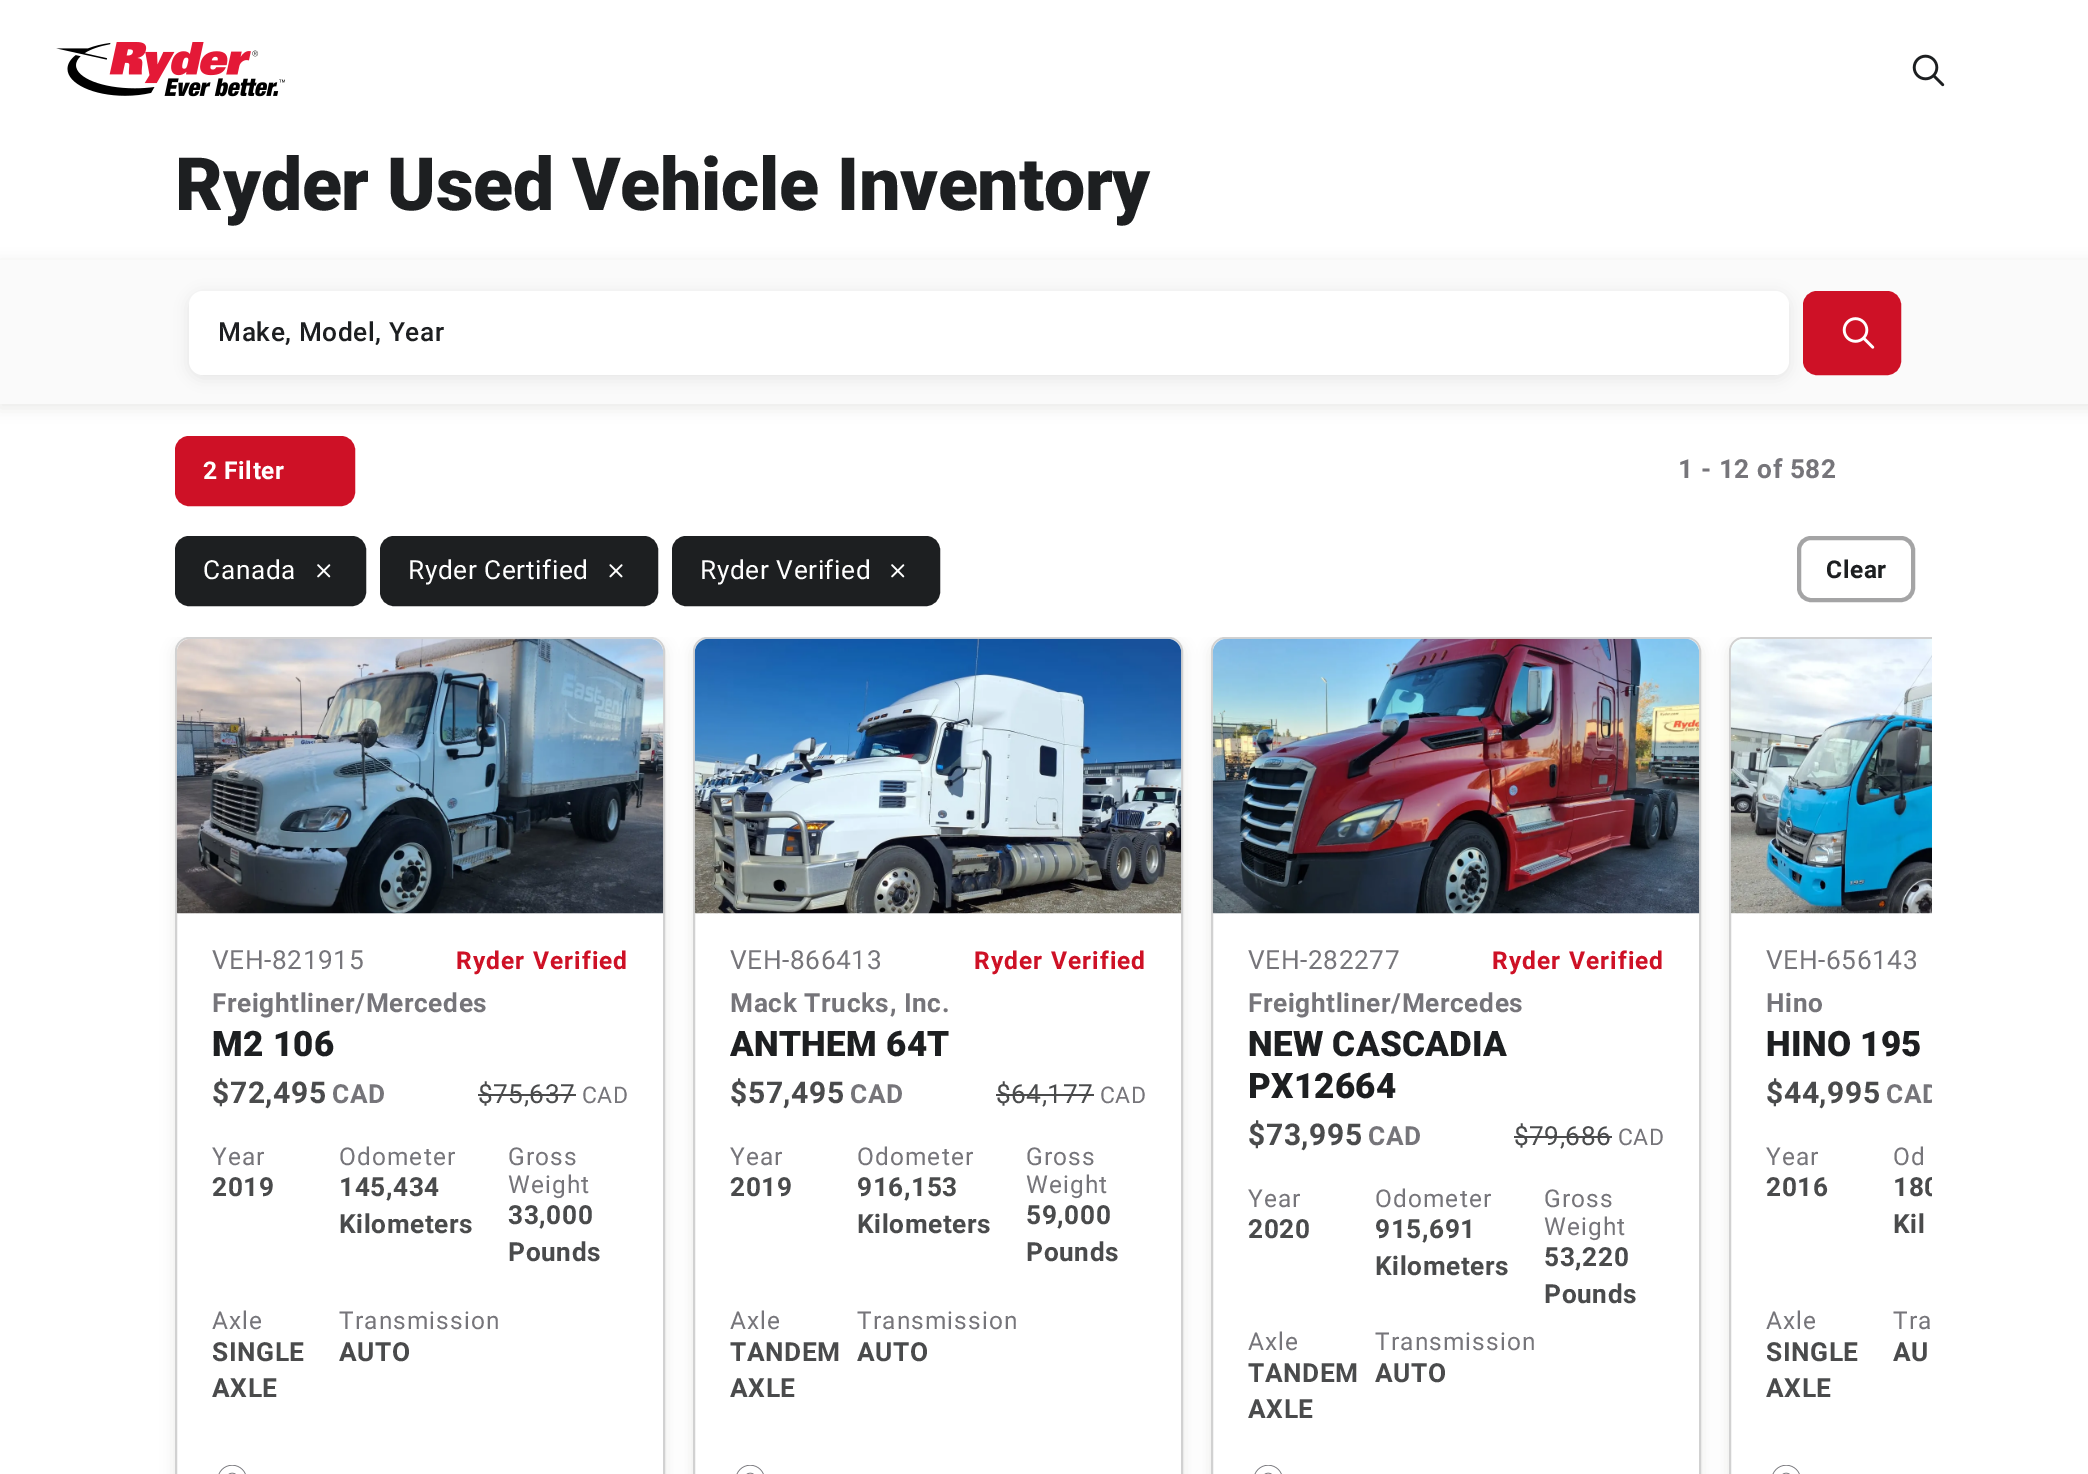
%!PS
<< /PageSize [2088 1474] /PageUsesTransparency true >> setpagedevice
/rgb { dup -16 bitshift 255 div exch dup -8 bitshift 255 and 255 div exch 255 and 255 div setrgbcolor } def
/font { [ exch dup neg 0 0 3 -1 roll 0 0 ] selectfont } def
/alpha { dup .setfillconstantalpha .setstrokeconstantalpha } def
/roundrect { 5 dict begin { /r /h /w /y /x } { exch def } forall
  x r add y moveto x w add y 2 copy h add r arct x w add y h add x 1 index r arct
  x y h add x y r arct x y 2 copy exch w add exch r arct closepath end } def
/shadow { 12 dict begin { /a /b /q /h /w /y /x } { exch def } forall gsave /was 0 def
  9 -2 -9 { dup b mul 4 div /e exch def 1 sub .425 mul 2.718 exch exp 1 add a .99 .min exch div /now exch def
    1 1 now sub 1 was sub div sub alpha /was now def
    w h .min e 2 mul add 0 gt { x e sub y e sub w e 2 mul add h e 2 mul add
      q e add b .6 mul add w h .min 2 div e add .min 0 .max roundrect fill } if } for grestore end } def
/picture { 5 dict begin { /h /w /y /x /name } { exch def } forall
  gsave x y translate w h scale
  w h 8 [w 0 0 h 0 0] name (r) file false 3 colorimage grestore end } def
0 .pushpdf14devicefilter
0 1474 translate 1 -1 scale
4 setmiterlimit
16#FFFFFF rgb
0 0 2088 1474 rectfill
(pic1.raw) 56 42 229 55 picture
(pic2.raw) 1912 54 33 33 picture
/Roboto-Black 73.5 font
16#1D1F21 rgb
175 210 moveto -0.25 0 (Ryder Used Vehicle Inventory) ashow
16#1C1C1B rgb
0 263 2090 145 0 7 0.1 shadow
16#FAFAFA rgb
0 260 2088 144 rectfill
16#1C1C1B rgb
189 294 1600 84 14 7 0.1 shadow
16#FFFFFF rgb
189 291 1600 84 14 roundrect fill
/Roboto-Medium 26.25 font
16#1D1F21 rgb
218 341 moveto 0.6 0 (Make, Model, Year) ashow
16#CE1126 rgb
1805 293 94 80 12 roundrect gsave fill grestore
4 setlinewidth
stroke
(pic3.raw) 1842 317 33 32 picture
177 438 176 66 12 roundrect gsave fill grestore
stroke
/Roboto-Bold 24.5 font
16#FFFFFF rgb
203 479 moveto 0.6 0 (2 Filter) ashow
/Roboto-Bold 26.25 font
16#76757A rgb
1678 478 moveto 0.6 0 (1 - 12 of 582) ashow
16#1D1F21 rgb
177 538 187 66 12 roundrect gsave fill grestore
stroke
/Roboto-Regular 26.25 font
16#FFFFFF rgb
203 579 moveto 0.6 0 (Canada) ashow
(pic4.raw) 317 564 14 14 picture
16#1D1F21 rgb
382 538 274 66 12 roundrect gsave fill grestore
stroke
16#FFFFFF rgb
408 579 moveto 0.6 0 (Ryder Certified) ashow
(pic5.raw) 609 564 14 14 picture
16#1D1F21 rgb
674 538 264 66 12 roundrect gsave fill grestore
stroke
16#FFFFFF rgb
700 579 moveto 0.6 0 (Ryder Verified) ashow
(pic4.raw) 891 564 14 14 picture
16#A4A4A5 rgb
1799 538 114 62 12 roundrect stroke
/Roboto-Bold 24.5 font
16#1D1F21 rgb
1826 578 moveto 0.6 0 (Clear) ashow
gsave
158 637 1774 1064 rectclip
16#1C1C1B rgb
175 641 490 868 14 7 0.1 shadow
grestore
16#FFFFFF rgb
176 638 488 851 13 roundrect gsave fill grestore
16#D1D1D1 rgb
2 setlinewidth
stroke
(pic6.raw) 176 638 488 276 picture
/Roboto-Regular 26.25 font
16#76757A rgb
212 969 moveto 0.6 0 (VEH-821915) ashow
/Roboto-Bold 24.5 font
16#CE1126 rgb
456 969 moveto 1.1 0 (Ryder Verified) ashow
/Roboto-Bold 26.25 font
16#76757A rgb
212 1012 moveto 0.6 0 (Freightliner/Mercedes) ashow
/Roboto-Black 35 font
16#1D1F21 rgb
212 1056 moveto 0.3 0 (M2 106) ashow
/Roboto-Bold 30 font
16#4A4B4C rgb
212 1103 moveto 0.6 0 ($72,495) ashow
/Roboto-Bold 26.25 font
16#76757A rgb
332 1103 moveto 0.6 0 (CAD) ashow
/Roboto-Regular 26.25 font
16#4A4B4C rgb
478 1103 moveto 0.5 0 ($75,637) ashow
478 1094 98 2 rectfill
/Roboto-Regular 23 font
16#76757A rgb
582 1103 moveto 0.5 0 (CAD) ashow
/Roboto-Regular 24.5 font
212 1165 moveto 1.1 0 (Year) ashow
/Roboto-Bold 26.25 font
16#4A4B4C rgb
212 1196 moveto 0.6 0 (2019) ashow
/Roboto-Regular 24.5 font
16#76757A rgb
339 1165 moveto 1.1 0 (Odometer) ashow
/Roboto-Bold 26.25 font
16#4A4B4C rgb
339 1196 moveto 0.6 0 (145,434) ashow
339 1233 moveto 0.6 0 (Kilometers) ashow
/Roboto-Regular 24.5 font
16#76757A rgb
508 1165 moveto 1.1 0 (Gross) ashow
508 1193 moveto 1.1 0 (Weight) ashow
/Roboto-Bold 26.25 font
16#4A4B4C rgb
508 1224 moveto 0.6 0 (33,000) ashow
508 1261 moveto 0.6 0 (Pounds) ashow
/Roboto-Regular 24.5 font
16#76757A rgb
212 1329 moveto 1.1 0 (Axle) ashow
/Roboto-Bold 26.25 font
16#4A4B4C rgb
212 1361 moveto 0.6 0 (SINGLE) ashow
212 1397 moveto 0.6 0 (AXLE) ashow
/Roboto-Regular 24.5 font
16#76757A rgb
339 1329 moveto 1.1 0 (Transmission) ashow
/Roboto-Bold 26.25 font
16#4A4B4C rgb
339 1361 moveto 0.6 0 (AUTO) ashow
(pic7.raw) 218 1465 28 9 picture
gsave
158 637 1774 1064 rectclip
16#1C1C1B rgb
693 641 490 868 14 7 0.1 shadow
grestore
16#FFFFFF rgb
694 638 488 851 13 roundrect gsave fill grestore
16#D1D1D1 rgb
stroke
(pic8.raw) 694 638 488 276 picture
/Roboto-Regular 26.25 font
16#76757A rgb
730 969 moveto 0.6 0 (VEH-866413) ashow
/Roboto-Bold 24.5 font
16#CE1126 rgb
974 969 moveto 1.1 0 (Ryder Verified) ashow
/Roboto-Bold 26.25 font
16#76757A rgb
730 1012 moveto 0.6 0 (Mack Trucks, Inc.) ashow
/Roboto-Black 35 font
16#1D1F21 rgb
730 1056 moveto 0.3 0 (ANTHEM 64T) ashow
/Roboto-Bold 30 font
16#4A4B4C rgb
730 1103 moveto 0.6 0 ($57,495) ashow
/Roboto-Bold 26.25 font
16#76757A rgb
850 1103 moveto 0.6 0 (CAD) ashow
/Roboto-Regular 26.25 font
16#4A4B4C rgb
996 1103 moveto 0.5 0 ($64,177) ashow
996 1094 98 2 rectfill
/Roboto-Regular 23 font
16#76757A rgb
1100 1103 moveto 0.5 0 (CAD) ashow
/Roboto-Regular 24.5 font
730 1165 moveto 1.1 0 (Year) ashow
/Roboto-Bold 26.25 font
16#4A4B4C rgb
730 1196 moveto 0.6 0 (2019) ashow
/Roboto-Regular 24.5 font
16#76757A rgb
857 1165 moveto 1.1 0 (Odometer) ashow
/Roboto-Bold 26.25 font
16#4A4B4C rgb
857 1196 moveto 0.6 0 (916,153) ashow
857 1233 moveto 0.6 0 (Kilometers) ashow
/Roboto-Regular 24.5 font
16#76757A rgb
1026 1165 moveto 1.1 0 (Gross) ashow
1026 1193 moveto 1.1 0 (Weight) ashow
/Roboto-Bold 26.25 font
16#4A4B4C rgb
1026 1224 moveto 0.6 0 (59,000) ashow
1026 1261 moveto 0.6 0 (Pounds) ashow
/Roboto-Regular 24.5 font
16#76757A rgb
730 1329 moveto 1.1 0 (Axle) ashow
/Roboto-Bold 26.25 font
16#4A4B4C rgb
730 1361 moveto 0.6 0 (TANDEM) ashow
730 1397 moveto 0.6 0 (AXLE) ashow
/Roboto-Regular 24.5 font
16#76757A rgb
857 1329 moveto 1.1 0 (Transmission) ashow
/Roboto-Bold 26.25 font
16#4A4B4C rgb
857 1361 moveto 0.6 0 (AUTO) ashow
(pic7.raw) 736 1465 28 9 picture
gsave
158 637 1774 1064 rectclip
16#1C1C1B rgb
1211 641 490 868 14 7 0.1 shadow
grestore
16#FFFFFF rgb
1212 638 488 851 13 roundrect gsave fill grestore
16#D1D1D1 rgb
stroke
(pic9.raw) 1212 638 488 276 picture
/Roboto-Regular 26.25 font
16#76757A rgb
1248 969 moveto 0.6 0 (VEH-282277) ashow
/Roboto-Bold 24.5 font
16#CE1126 rgb
1492 969 moveto 1.1 0 (Ryder Verified) ashow
/Roboto-Bold 26.25 font
16#76757A rgb
1248 1012 moveto 0.6 0 (Freightliner/Mercedes) ashow
/Roboto-Black 35 font
16#1D1F21 rgb
1248 1056 moveto 0.3 0 (NEW CASCADIA) ashow
1248 1098 moveto 0.3 0 (PX12664) ashow
/Roboto-Bold 30 font
16#4A4B4C rgb
1248 1145 moveto 0.6 0 ($73,995) ashow
/Roboto-Bold 26.25 font
16#76757A rgb
1368 1145 moveto 0.6 0 (CAD) ashow
/Roboto-Regular 26.25 font
16#4A4B4C rgb
1514 1145 moveto 0.5 0 ($79,686) ashow
1514 1136 98 2 rectfill
/Roboto-Regular 23 font
16#76757A rgb
1618 1145 moveto 0.5 0 (CAD) ashow
/Roboto-Regular 24.5 font
1248 1207 moveto 1.1 0 (Year) ashow
/Roboto-Bold 26.25 font
16#4A4B4C rgb
1248 1238 moveto 0.6 0 (2020) ashow
/Roboto-Regular 24.5 font
16#76757A rgb
1375 1207 moveto 1.1 0 (Odometer) ashow
/Roboto-Bold 26.25 font
16#4A4B4C rgb
1375 1238 moveto 0.6 0 (915,691) ashow
1375 1275 moveto 0.6 0 (Kilometers) ashow
/Roboto-Regular 24.5 font
16#76757A rgb
1544 1207 moveto 1.1 0 (Gross) ashow
1544 1235 moveto 1.1 0 (Weight) ashow
/Roboto-Bold 26.25 font
16#4A4B4C rgb
1544 1266 moveto 0.6 0 (53,220) ashow
1544 1303 moveto 0.6 0 (Pounds) ashow
/Roboto-Regular 24.5 font
16#76757A rgb
1248 1350 moveto 1.1 0 (Axle) ashow
/Roboto-Bold 26.25 font
16#4A4B4C rgb
1248 1382 moveto 0.6 0 (TANDEM) ashow
1248 1418 moveto 0.6 0 (AXLE) ashow
/Roboto-Regular 24.5 font
16#76757A rgb
1375 1350 moveto 1.1 0 (Transmission) ashow
/Roboto-Bold 26.25 font
16#4A4B4C rgb
1375 1382 moveto 0.6 0 (AUTO) ashow
(pic7.raw) 1254 1465 28 9 picture
gsave
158 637 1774 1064 rectclip
16#1C1C1B rgb
1729 641 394 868 14 7 0.1 shadow
grestore
16#FFFFFF rgb
1743 637 moveto 1932 637 lineto 1932 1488 lineto 1743 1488 lineto 1735.5 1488 1729 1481.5 1729 1474 curveto 1729 651 lineto 1729 643.5 1735.5 637 1743 637 curveto closepath fill
gsave
158 637 1774 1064 rectclip
16#D1D1D1 rgb
1730 638 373 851 13 roundrect stroke
grestore
(pic10.raw) 1730 639 202 275 picture
/Roboto-Regular 26.25 font
16#76757A rgb
1766 969 moveto 0.6 0 (VEH-656143) ashow
/Roboto-Bold 26.25 font
1766 1012 moveto 0.6 0 (Hino) ashow
/Roboto-Black 35 font
16#1D1F21 rgb
1766 1056 moveto 0.3 0 (HINO 195) ashow
/Roboto-Bold 30 font
16#4A4B4C rgb
1766 1103 moveto 0.6 0 ($44,995) ashow
gsave
158 637 1774 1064 rectclip
/Roboto-Bold 26.25 font
16#76757A rgb
1886 1103 moveto 0.6 0 (CAD) ashow
grestore
/Roboto-Regular 24.5 font
16#76757A rgb
1766 1165 moveto 1.1 0 (Year) ashow
/Roboto-Bold 26.25 font
16#4A4B4C rgb
1766 1196 moveto 0.6 0 (2016) ashow
/Roboto-Regular 24.5 font
16#76757A rgb
1893 1165 moveto 1.1 0 (Od) ashow
gsave
158 637 1774 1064 rectclip
/Roboto-Bold 26.25 font
16#4A4B4C rgb
1893 1196 moveto 0.6 0 (180) ashow
grestore
/Roboto-Bold 26.25 font
16#4A4B4C rgb
1893 1233 moveto 0.6 0 (Kil) ashow
/Roboto-Regular 24.5 font
16#76757A rgb
1766 1329 moveto 1.1 0 (Axle) ashow
/Roboto-Bold 26.25 font
16#4A4B4C rgb
1766 1361 moveto 0.6 0 (SINGLE) ashow
1766 1397 moveto 0.6 0 (AXLE) ashow
/Roboto-Regular 24.5 font
16#76757A rgb
1893 1329 moveto 1.1 0 (Tra) ashow
/Roboto-Bold 26.25 font
16#4A4B4C rgb
1893 1361 moveto 0.6 0 (AU) ashow
(pic7.raw) 1772 1465 28 9 picture
.poppdf14devicefilter showpage
